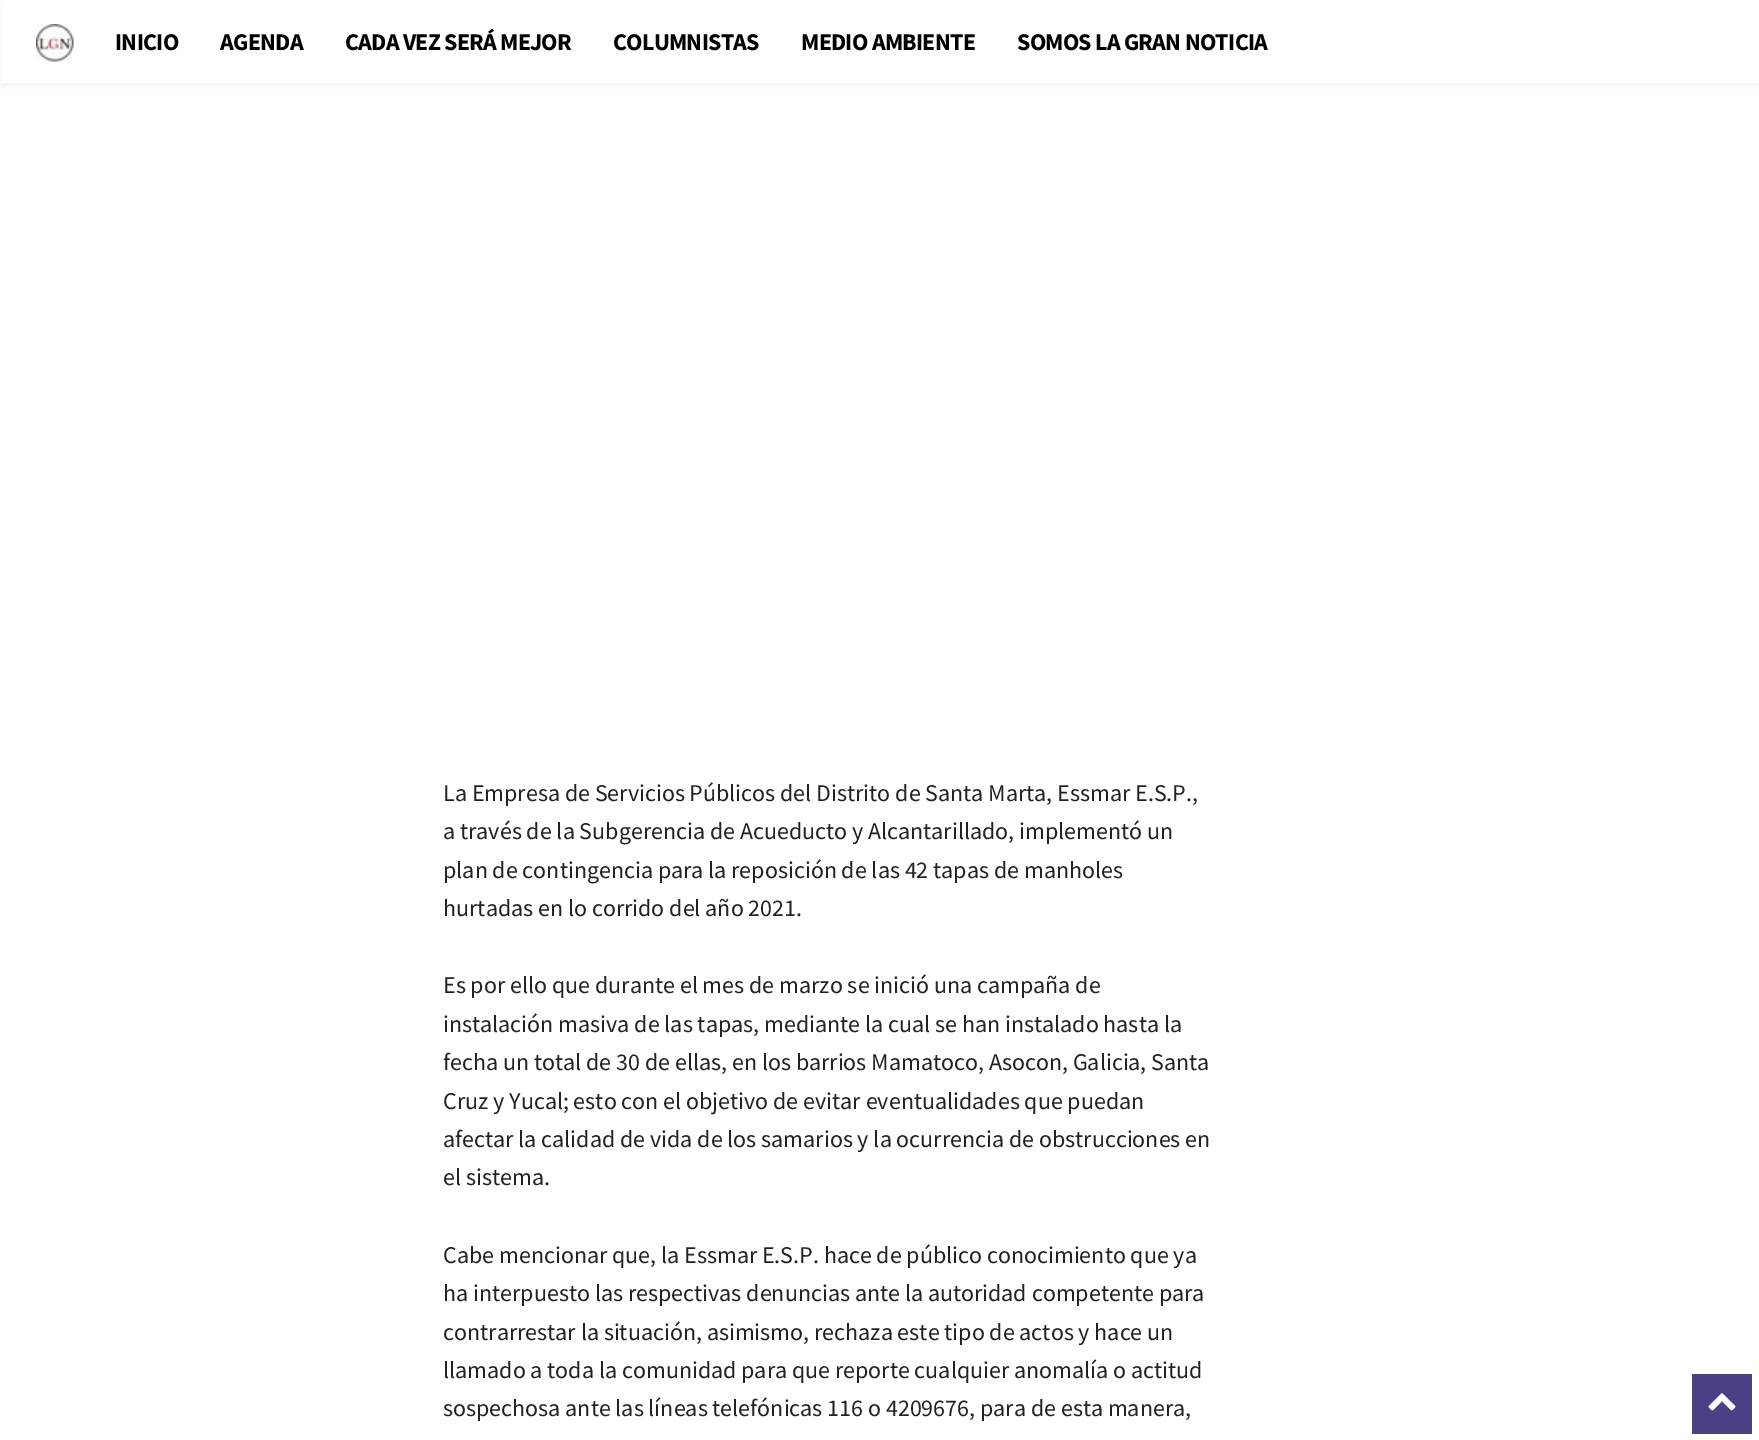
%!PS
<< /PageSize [1759 1440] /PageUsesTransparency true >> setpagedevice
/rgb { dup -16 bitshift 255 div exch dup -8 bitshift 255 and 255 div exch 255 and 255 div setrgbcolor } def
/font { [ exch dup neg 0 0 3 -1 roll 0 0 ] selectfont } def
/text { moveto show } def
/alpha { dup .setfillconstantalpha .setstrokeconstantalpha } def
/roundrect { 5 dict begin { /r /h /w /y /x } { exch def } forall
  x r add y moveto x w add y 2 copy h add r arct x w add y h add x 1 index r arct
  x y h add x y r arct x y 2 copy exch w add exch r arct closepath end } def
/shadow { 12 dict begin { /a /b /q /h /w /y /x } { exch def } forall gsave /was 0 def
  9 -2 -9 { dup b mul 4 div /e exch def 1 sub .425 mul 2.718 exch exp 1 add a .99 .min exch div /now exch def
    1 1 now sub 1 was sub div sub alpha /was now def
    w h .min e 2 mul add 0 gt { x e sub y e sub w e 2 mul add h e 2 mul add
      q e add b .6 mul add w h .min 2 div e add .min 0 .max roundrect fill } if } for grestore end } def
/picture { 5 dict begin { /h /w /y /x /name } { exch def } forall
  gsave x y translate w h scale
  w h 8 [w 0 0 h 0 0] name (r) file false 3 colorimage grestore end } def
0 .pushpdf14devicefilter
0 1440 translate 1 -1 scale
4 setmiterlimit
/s1 { /SourceSansPro-Regular 24 font 16#222222 rgb } def
16#FFFFFF rgb
0 0 1759 1440 rectfill
(pic1.raw) 36 24 38 38 picture
gsave
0 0 moveto 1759 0 lineto 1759 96 lineto 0 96 lineto closepath 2 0 moveto 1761 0 lineto 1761 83 lineto 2 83 lineto closepath eoclip newpath
16#000000 rgb
2 3 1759 83 0 3 0.06 shadow
grestore
/SourceSansPro-Bold 24 font
16#000000 rgb
115 50 moveto -0.75 0 (INICIO) ashow
220 50 moveto -0.75 0 (AGENDA) ashow
345 50 moveto -0.75 0 (CADA VEZ SERÁ MEJOR) ashow
613 50 moveto -0.75 0 (COLUMNISTAS) ashow
801 50 moveto -0.75 0 (MEDIO AMBIENTE) ashow
1017 50 moveto -0.75 0 (SOMOS LA GRAN NOTICIA) ashow
s1
(La Empresa de Servicios Públicos del Distrito de Santa Marta, Essmar E.S.P.,) 443 801 text
(a través de la Subgerencia de Acueducto y Alcantarillado, implementó un) 443 839 text
(plan de contingencia para la reposición de las 42 tapas de manholes) 443 878 text
(hurtadas en lo corrido del año 2021.) 443 916 text
(Es por ello que durante el mes de marzo se inició una campaña de) 443 993 text
(instalación masiva de las tapas, mediante la cual se han instalado hasta la) 443 1032 text
(fecha un total de 30 de ellas, en los barrios Mamatoco, Asocon, Galicia, Santa) 443 1070 text
(Cruz y Yucal; esto con el objetivo de evitar eventualidades que puedan) 443 1109 text
(afectar la calidad de vida de los samarios y la ocurrencia de obstrucciones en) 443 1147 text
(el sistema.) 443 1185 text
(Cabe mencionar que, la Essmar E.S.P. hace de público conocimiento que ya) 443 1263 text
(ha interpuesto las respectivas denuncias ante la autoridad competente para) 443 1301 text
(contrarrestar la situación, asimismo, rechaza este tipo de actos y hace un) 443 1340 text
(llamado a toda la comunidad para que reporte cualquier anomalía o actitud) 443 1378 text
(sospechosa ante las líneas telefónicas 116 o 4209676, para de esta manera,) 443 1416 text
16#4C4084 rgb
1692 1374 60 60 rectfill
(pic2.raw) 1708 1393 28 18 picture
.poppdf14devicefilter showpage
